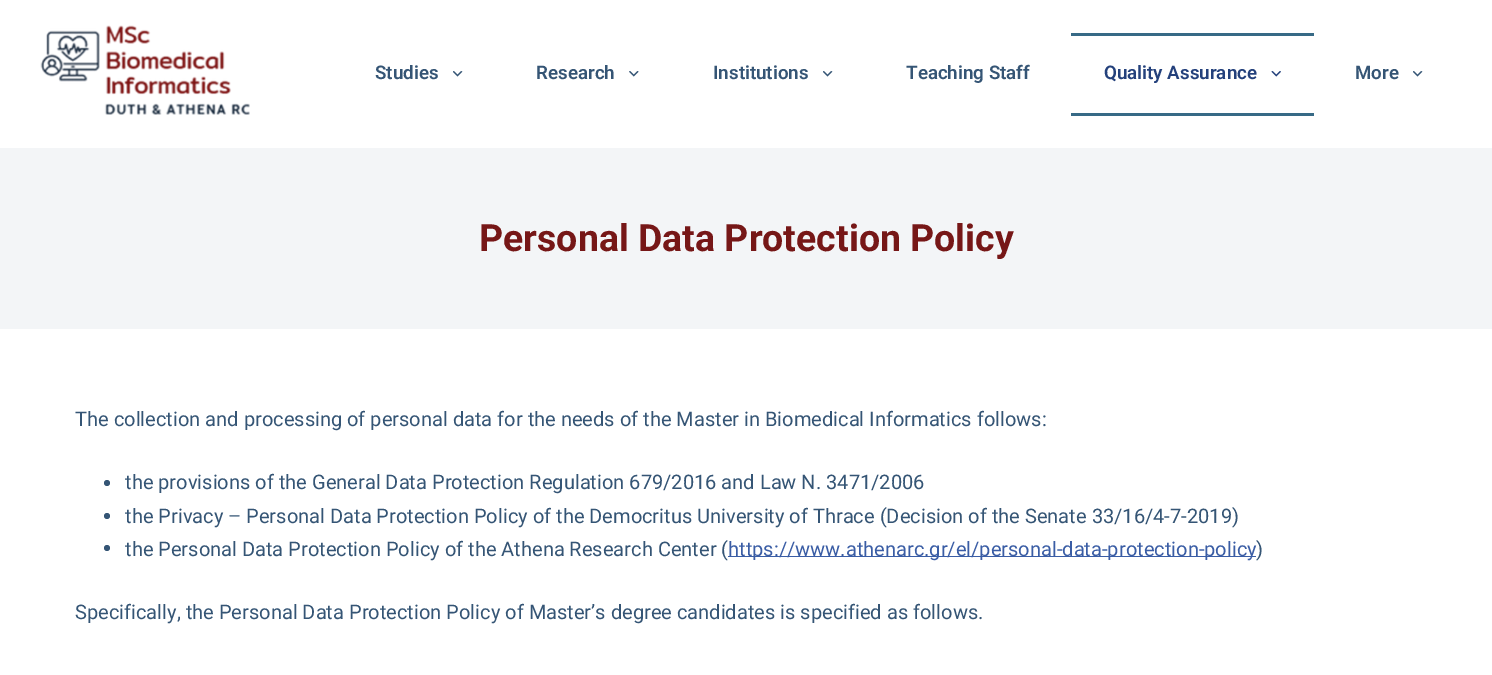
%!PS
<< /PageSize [1492 675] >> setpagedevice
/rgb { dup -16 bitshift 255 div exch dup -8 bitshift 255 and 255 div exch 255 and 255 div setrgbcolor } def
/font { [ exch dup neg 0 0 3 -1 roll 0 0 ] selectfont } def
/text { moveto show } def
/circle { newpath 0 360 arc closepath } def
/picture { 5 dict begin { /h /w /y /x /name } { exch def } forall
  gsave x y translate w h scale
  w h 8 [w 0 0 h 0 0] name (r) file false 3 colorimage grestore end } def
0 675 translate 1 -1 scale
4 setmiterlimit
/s1 { /Roboto-SemiBold 18.75 font 16#355575 rgb } def
/s2 { /Roboto-SemiBold 18.75 font 16#24417C rgb } def
/s3 { /Roboto-Bold 37.5 font 16#761717 rgb } def
/s4 { /Roboto-Regular 20.05 font 16#355575 rgb } def
/s5 { /Roboto-Regular 20.05 font 16#3A5DA5 rgb } def
16#FFFFFF rgb
0 0 1492 675 rectfill
(pic1.raw) 40 25 210 90 picture
s1
(Studies) 375 79 text
(pic2.raw) 453 71 10 6 picture
(Research) 536 79 text
(pic3.raw) 629 71 10 6 picture
(Institutions) 713 79 text
(pic2.raw) 823 71 10 6 picture
(Teaching Staff) 906 79 text
16#376A86 rgb
1071 33 243 3 rectfill
s2
(Quality Assurance) 1104 79 text
(pic4.raw) 1271 71 10 6 picture
16#376A86 rgb
1071 113 243 3 rectfill
s1
(More) 1355 79 text
(pic2.raw) 1413 71 10 6 picture
16#F3F5F7 rgb
0 148 1492 181 rectfill
s3
(Personal Data Protection Policy) 479 251 text
s4
(The collection and processing of personal data for the needs of the Master in Biomedical Informatics follows:) 75 426 text
107 483 3 circle fill
(the provisions of the General Data Protection Regulation 679/2016 and Law N. 3471/2006) 125 489 text
107 516 3 circle fill
(the Privacy – Personal Data Protection Policy of the Democritus University of Thrace \(Decision of the Senate 33/16/4-7-2019\)) 125 523 text
107 548 3 circle fill
(the Personal Data Protection Policy of the Athena Research Center \() 125 556 text
16#3A5DA5 rgb
728 556 528 1 rectfill
(https://www.athenarc.gr/el/personal-data-protection-policy) 728 556 text
s4
(\)) 1256 556 text
(Specifically, the Personal Data Protection Policy of Master’s degree candidates is specified as follows.) 75 619 text
showpage
